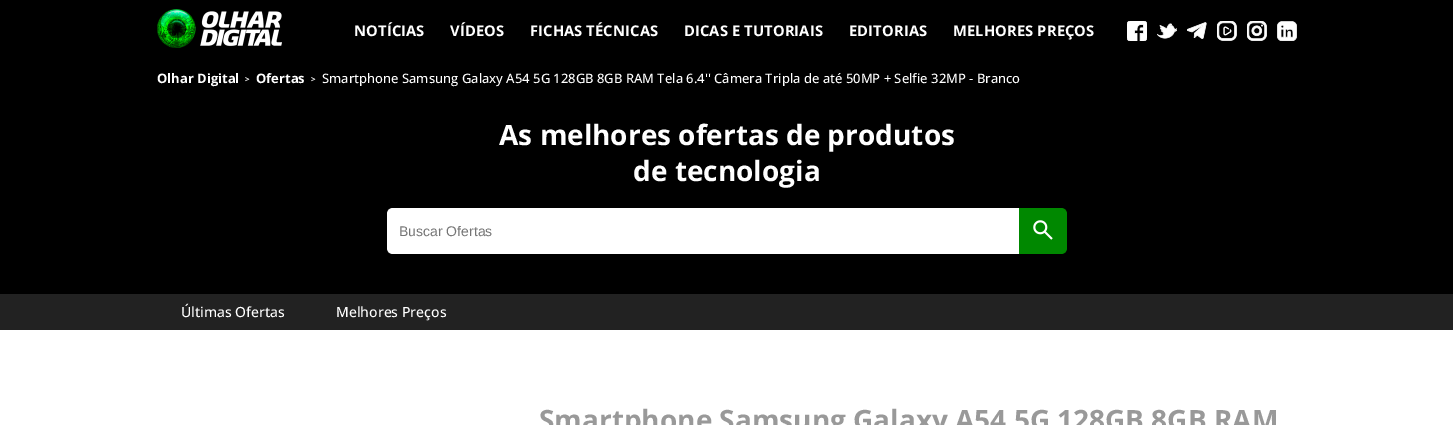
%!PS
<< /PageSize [1453 425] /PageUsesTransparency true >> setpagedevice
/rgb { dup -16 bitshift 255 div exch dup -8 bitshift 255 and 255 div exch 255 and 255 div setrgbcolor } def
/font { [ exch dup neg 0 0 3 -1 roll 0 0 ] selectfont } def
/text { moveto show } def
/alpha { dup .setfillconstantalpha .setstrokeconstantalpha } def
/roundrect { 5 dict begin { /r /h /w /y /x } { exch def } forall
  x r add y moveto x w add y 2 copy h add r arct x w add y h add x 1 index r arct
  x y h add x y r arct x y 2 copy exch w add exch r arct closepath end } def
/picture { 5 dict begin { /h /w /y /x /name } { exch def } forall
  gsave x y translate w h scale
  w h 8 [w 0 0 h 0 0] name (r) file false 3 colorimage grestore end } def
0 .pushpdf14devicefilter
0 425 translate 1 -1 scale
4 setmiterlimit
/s1 { /OpenSans-Bold 13 font 16#FFFFFF rgb } def
/s2 { /OpenSans-Bold 8 font 16#FFFFFF rgb } def
/s3 { /OpenSans-Medium 13 font 16#FFFFFF rgb } def
/s4 { /OpenSans-Bold 28 font 16#FFFFFF rgb } def
/s5 { /LiberationSans-Regular 14 font 16#757575 rgb } def
/s6 { /OpenSans-Medium 14 font 16#FFFFFF rgb } def
/s7 { /OpenSans-Bold 28 font 16#333333 rgb } def
16#FFFFFF rgb
0 0 1453 425 rectfill
16#000000 rgb
0 0 1453 294 rectfill
(pic1.raw) 157 9 125 39 picture
/OpenSans-Bold 14.75 font
16#FFFFFF rgb
354 36 moveto 0.1 0 (NOTÍCIAS) ashow
450 36 moveto 0.1 0 (VÍDEOS) ashow
530 36 moveto 0.1 0 (FICHAS TÉCNICAS) ashow
684 36 moveto 0.1 0 (DICAS E TUTORIAIS) ashow
849 36 moveto 0.1 0 (EDITORIAS) ashow
953 36 moveto 0.1 0 (MELHORES PREÇOS) ashow
(pic2.raw) 1127 21 20 20 picture
(pic3.raw) 1157 23 20 16 picture
(pic4.raw) 1187 22 20 17 picture
(pic5.raw) 1217 21 20 20 picture
(pic6.raw) 1247 21 20 20 picture
(pic7.raw) 1277 21 20 20 picture
s1
(Olhar Digital) 157 83 text
s2
(>) 245 82 text
s1
(Ofertas) 256 83 text
s2
(>) 311 82 text
s3
(Smartphone Samsung Galaxy A54 5G 128GB 8GB RAM Tela 6.4'' Câmera Tripla de até 50MP + Selfie 32MP - Branco) 322 83 text
s4
(As melhores ofertas de produtos) 499 145 text
(de tecnologia) 633 181 text
393 208 moveto 1019 208 lineto 1019 254 lineto 393 254 lineto 389.5 254 387 251.5 387 248 curveto 387 214 lineto 387 210.5 389.5 208 393 208 curveto closepath fill
s5
(Buscar Ofertas) 399 236 text
16#008800 rgb
1019 208 moveto 1061 208 lineto 1064.5 208 1067 210.5 1067 214 curveto 1067 248 lineto 1067 251.5 1064.5 254 1061 254 curveto 1019 254 lineto closepath fill
(pic8.raw) 1033 220 20 20 picture
16#222222 rgb
0 294 1453 36 rectfill
s6
(Últimas Ofertas) 181 317 text
(Melhores Preços) 336 317 text
s7
(Smartphone Samsung Galaxy A54 5G 128GB 8GB RAM) 539 430 text
0.5 alpha
16#FFFFFF rgb
157 370 1140 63 8 roundrect fill
.poppdf14devicefilter showpage
